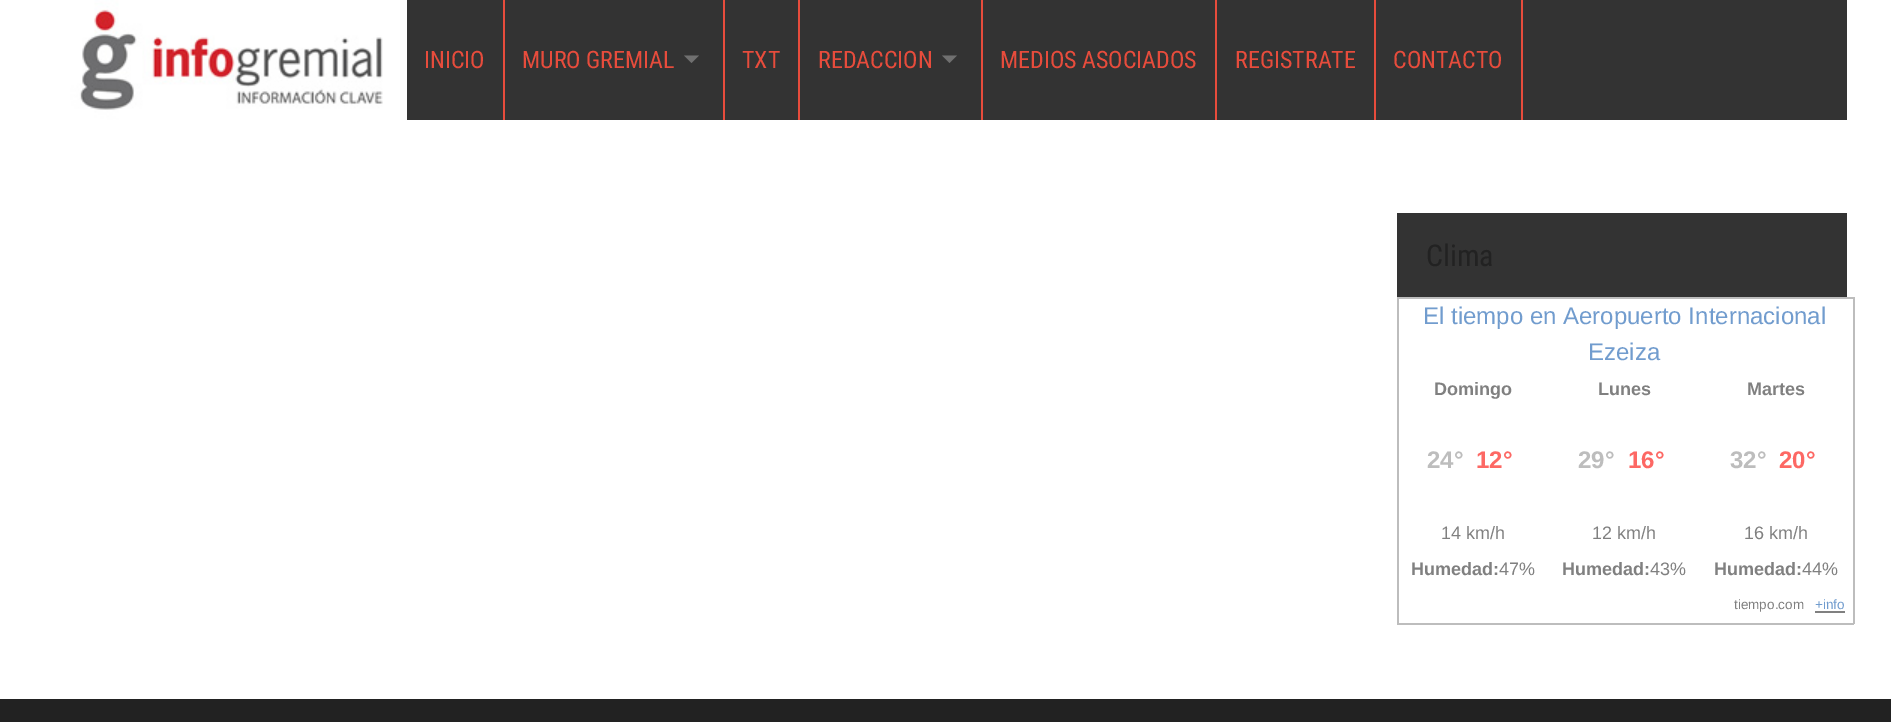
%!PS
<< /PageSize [1891 722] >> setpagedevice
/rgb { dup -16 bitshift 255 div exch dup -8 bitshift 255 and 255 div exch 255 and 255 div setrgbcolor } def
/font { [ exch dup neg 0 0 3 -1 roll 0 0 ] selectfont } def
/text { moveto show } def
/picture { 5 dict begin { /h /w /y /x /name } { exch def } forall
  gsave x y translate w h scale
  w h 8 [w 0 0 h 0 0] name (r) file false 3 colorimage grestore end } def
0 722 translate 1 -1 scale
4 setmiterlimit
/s1 { /RobotoCondensed-Regular 24 font 16#E74C3C rgb } def
/s2 { /RobotoCondensed-Regular 30 font 16#222222 rgb } def
/s3 { /LiberationSans-Regular 24 font 16#719CCE rgb } def
/s4 { /LiberationSans-Bold 18 font 16#808080 rgb } def
/s5 { /LiberationSans-Bold 24 font 16#BDBDBD rgb } def
/s6 { /LiberationSans-Bold 24 font 16#FD6864 rgb } def
/s7 { /LiberationSans-Regular 18 font 16#808080 rgb } def
/s8 { /LiberationSans-Regular 13.5 font 16#808080 rgb } def
/s9 { /LiberationSans-Regular 13.5 font 16#719CCE rgb } def
16#FFFFFF rgb
0 0 1891 722 rectfill
16#333333 rgb
407 0 1440 120 rectfill
(pic1.raw) 47 0 360 120 picture
16#E74C3C rgb
503 0 2 120 rectfill
s1
(INICIO) 424 68 text
723 0 2 120 rectfill
(MURO GREMIAL) 522 68 text
16#707070 rgb
684 55.5 moveto 699 55.5 lineto 691.5 63 lineto closepath fill
16#E74C3C rgb
798 0 2 120 rectfill
(TXT) 742 68 text
981 0 2 120 rectfill
(REDACCION) 818 68 text
16#707070 rgb
942 55.5 moveto 957 55.5 lineto 949.5 63 lineto closepath fill
16#E74C3C rgb
1215 0 2 120 rectfill
(MEDIOS ASOCIADOS) 1000 68 text
1374 0 2 120 rectfill
(REGISTRATE) 1235 68 text
1521 0 2 120 rectfill
(CONTACTO) 1393 68 text
16#333333 rgb
1397 213 450 84 rectfill
s2
(Clima) 1426 266 text
16#BDBDBD rgb
1397 297 457 2 rectfill
1853 297 2 327 rectfill
1397 623 457 2 rectfill
1397 297 2 327 rectfill
s3
(El tiempo en Aeropuerto Internacional) 1423 324 text
(Ezeiza) 1588 360 text
s4
(Domingo) 1434 395 text
s5
(24°) 1427 468 text
s6
(12°) 1476 468 text
s7
(14 km/h) 1441 539 text
s4
(Humedad:) 1411 575 text
s7
(47%) 1499 575 text
s4
(Lunes) 1598 395 text
s5
(29°) 1578 468 text
s6
(16°) 1628 468 text
s7
(12 km/h) 1592 539 text
s4
(Humedad:) 1562 575 text
s7
(43%) 1650 575 text
s4
(Martes) 1747 395 text
s5
(32°) 1730 468 text
s6
(20°) 1779 468 text
s7
(16 km/h) 1744 539 text
s4
(Humedad:) 1714 575 text
s7
(44%) 1802 575 text
s8
(tiempo.com) 1734 609 text
s9
(+info) 1815 609 text
16#808080 rgb
1815 611 30 2 rectfill
16#222222 rgb
0 699 1891 23 rectfill
showpage
